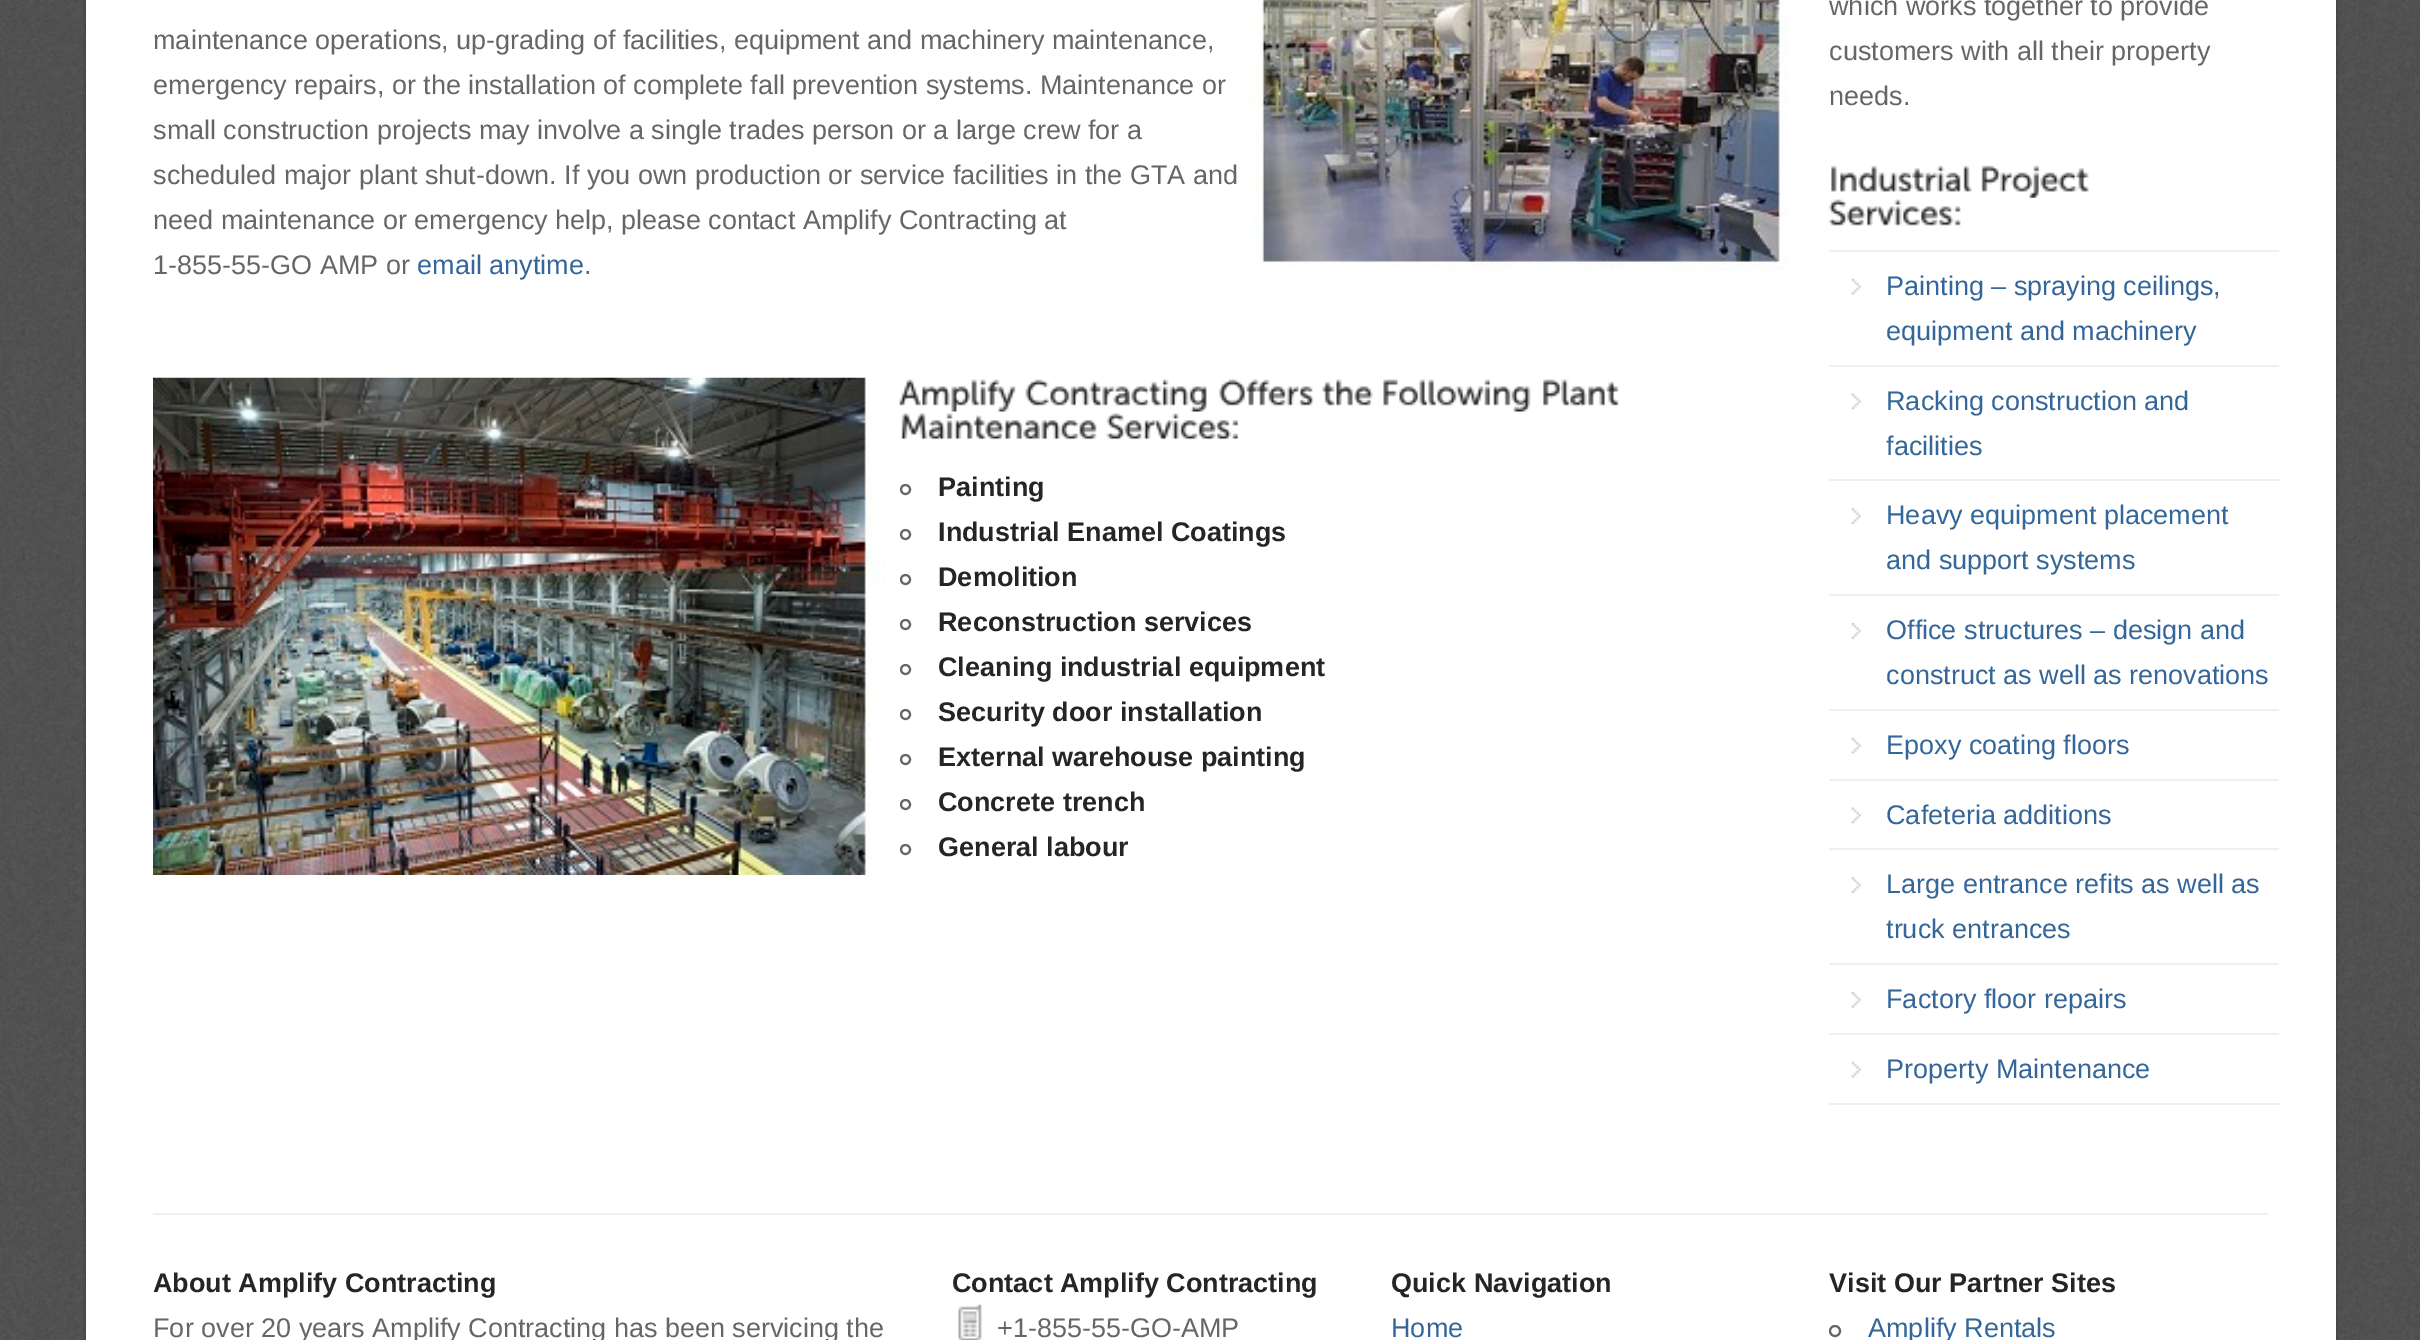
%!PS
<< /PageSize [2420 1340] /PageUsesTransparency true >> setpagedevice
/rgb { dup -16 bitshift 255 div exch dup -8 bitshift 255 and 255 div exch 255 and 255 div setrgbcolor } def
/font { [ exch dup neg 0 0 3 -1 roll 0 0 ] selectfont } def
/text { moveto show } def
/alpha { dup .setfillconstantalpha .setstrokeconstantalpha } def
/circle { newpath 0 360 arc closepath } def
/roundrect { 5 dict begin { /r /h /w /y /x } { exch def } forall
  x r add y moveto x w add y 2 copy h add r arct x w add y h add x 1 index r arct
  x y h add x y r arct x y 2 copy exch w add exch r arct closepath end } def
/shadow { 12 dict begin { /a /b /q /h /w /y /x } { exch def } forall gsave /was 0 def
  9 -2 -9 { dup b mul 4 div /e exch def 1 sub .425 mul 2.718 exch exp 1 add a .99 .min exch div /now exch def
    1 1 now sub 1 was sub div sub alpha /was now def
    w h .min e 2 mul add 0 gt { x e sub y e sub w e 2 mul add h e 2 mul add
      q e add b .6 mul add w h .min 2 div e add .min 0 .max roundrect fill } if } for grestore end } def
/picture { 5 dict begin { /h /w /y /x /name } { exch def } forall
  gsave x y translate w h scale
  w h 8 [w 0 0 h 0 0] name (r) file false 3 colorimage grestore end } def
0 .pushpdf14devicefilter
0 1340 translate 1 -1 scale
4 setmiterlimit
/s1 { /LiberationSans-Regular 27 font 16#666666 rgb } def
/s2 { /LiberationSans-Regular 27 font 16#346699 rgb } def
/s3 { /LiberationSans-Bold 27 font 16#252525 rgb } def
16#FFFFFF rgb
0 0 2420 1340 rectfill
(pic1.raw) 0 0 2420 1340 picture
16#333333 rgb
86 -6 2250 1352 0 2 1 shadow
16#FFFFFF rgb
86 0 2250 1340 rectfill
s1
(maintenance operations, up-grading of facilities, equipment and machinery maintenance,) 153 49 text
(pic2.raw) 1242 0 547 271 picture
(emergency repairs, or the installation of complete fall prevention systems. Maintenance or) 153 94 text
(small construction projects may involve a single trades person or a large crew for a) 153 139 text
(scheduled major plant shut-down. If you own production or service facilities in the GTA and) 153 184 text
(need maintenance or emergency help, please contact Amplify Contracting at) 153 229 text
(1-855-55-GO AMP or) 153 274 text
s2
(email anytime) 417 274 text
s1
(.) 584 274 text
(pic3.raw) 153 377 733 498 picture
(pic4.raw) 899 379 117 33 picture
(pic5.raw) 1025 379 182 33 picture
(pic6.raw) 1219 379 95 27 picture
(pic7.raw) 1322 379 51 27 picture
(pic8.raw) 1383 379 148 33 picture
(pic9.raw) 1543 379 76 27 picture
(pic10.raw) 900 413 197 27 picture
(pic11.raw) 1106 413 133 27 picture
2 setlinewidth
905.5 489.5 4.5 circle stroke
s3
(Painting) 938 496 text
16#666666 rgb
905.5 534.5 4.5 circle stroke
s3
(Industrial Enamel Coatings) 938 541 text
16#666666 rgb
905.5 579.5 4.5 circle stroke
s3
(Demolition) 938 586 text
16#666666 rgb
905.5 624.5 4.5 circle stroke
s3
(Reconstruction services) 938 631 text
16#666666 rgb
905.5 669.5 4.5 circle stroke
s3
(Cleaning industrial equipment) 938 676 text
16#666666 rgb
905.5 714.5 4.5 circle stroke
s3
(Security door installation) 938 721 text
16#666666 rgb
905.5 759.5 4.5 circle stroke
s3
(External warehouse painting) 938 766 text
16#666666 rgb
905.5 804.5 4.5 circle stroke
s3
(Concrete trench) 938 811 text
16#666666 rgb
905.5 849.5 4.5 circle stroke
s3
(General labour) 938 856 text
s1
(which works together to provide) 1829 15 text
(customers with all their property) 1829 60 text
(needs.) 1829 105 text
(pic12.raw) 1831 165 141 27 picture
(pic13.raw) 1981 165 108 33 picture
(pic14.raw) 1828 199 133 27 picture
16#EFEFEF rgb
1829 250 450 2 rectfill
1829 365 450 2 rectfill
(pic15.raw) 1851 278 10 17 picture
s2
(Painting – spraying ceilings,) 1886 295 text
(equipment and machinery) 1886 340 text
16#EFEFEF rgb
1829 479 450 2 rectfill
(pic16.raw) 1851 393 10 17 picture
s2
(Racking construction and) 1886 410 text
(facilities) 1886 455 text
16#EFEFEF rgb
1829 594 450 2 rectfill
(pic17.raw) 1851 508 10 16 picture
s2
(Heavy equipment placement) 1886 524 text
(and support systems) 1886 569 text
16#EFEFEF rgb
1829 709 450 2 rectfill
(pic18.raw) 1851 623 10 16 picture
s2
(Office structures – design and) 1886 639 text
(construct as well as renovations) 1886 684 text
16#EFEFEF rgb
1829 779 450 2 rectfill
(pic15.raw) 1851 737 10 17 picture
s2
(Epoxy coating floors) 1886 754 text
16#EFEFEF rgb
1829 848 450 2 rectfill
(pic16.raw) 1851 807 10 17 picture
s2
(Cafeteria additions) 1886 824 text
16#EFEFEF rgb
1829 963 450 2 rectfill
(pic17.raw) 1851 877 10 16 picture
s2
(Large entrance refits as well as) 1886 893 text
(truck entrances) 1886 938 text
16#EFEFEF rgb
1829 1033 450 2 rectfill
(pic18.raw) 1851 992 10 16 picture
s2
(Factory floor repairs) 1886 1008 text
16#EFEFEF rgb
1829 1103 450 2 rectfill
(pic15.raw) 1851 1061 10 17 picture
s2
(Property Maintenance) 1886 1078 text
16#EFEFEF rgb
153 1213 2115 2 rectfill
s3
(About Amplify Contracting) 153 1292 text
s1
(For over 20 years Amplify Contracting has been servicing the) 153 1337 text
s3
(Contact Amplify Contracting) 952 1292 text
(pic19.raw) 958 1304 24 36 picture
s1
(+1-855-55-GO-AMP) 997 1337 text
s3
(Quick Navigation) 1391 1292 text
s2
(Home) 1391 1337 text
s3
(Visit Our Partner Sites) 1829 1292 text
16#666666 rgb
1835 1331 5 circle stroke
s2
(Amplify Rentals) 1868 1337 text
.poppdf14devicefilter showpage
